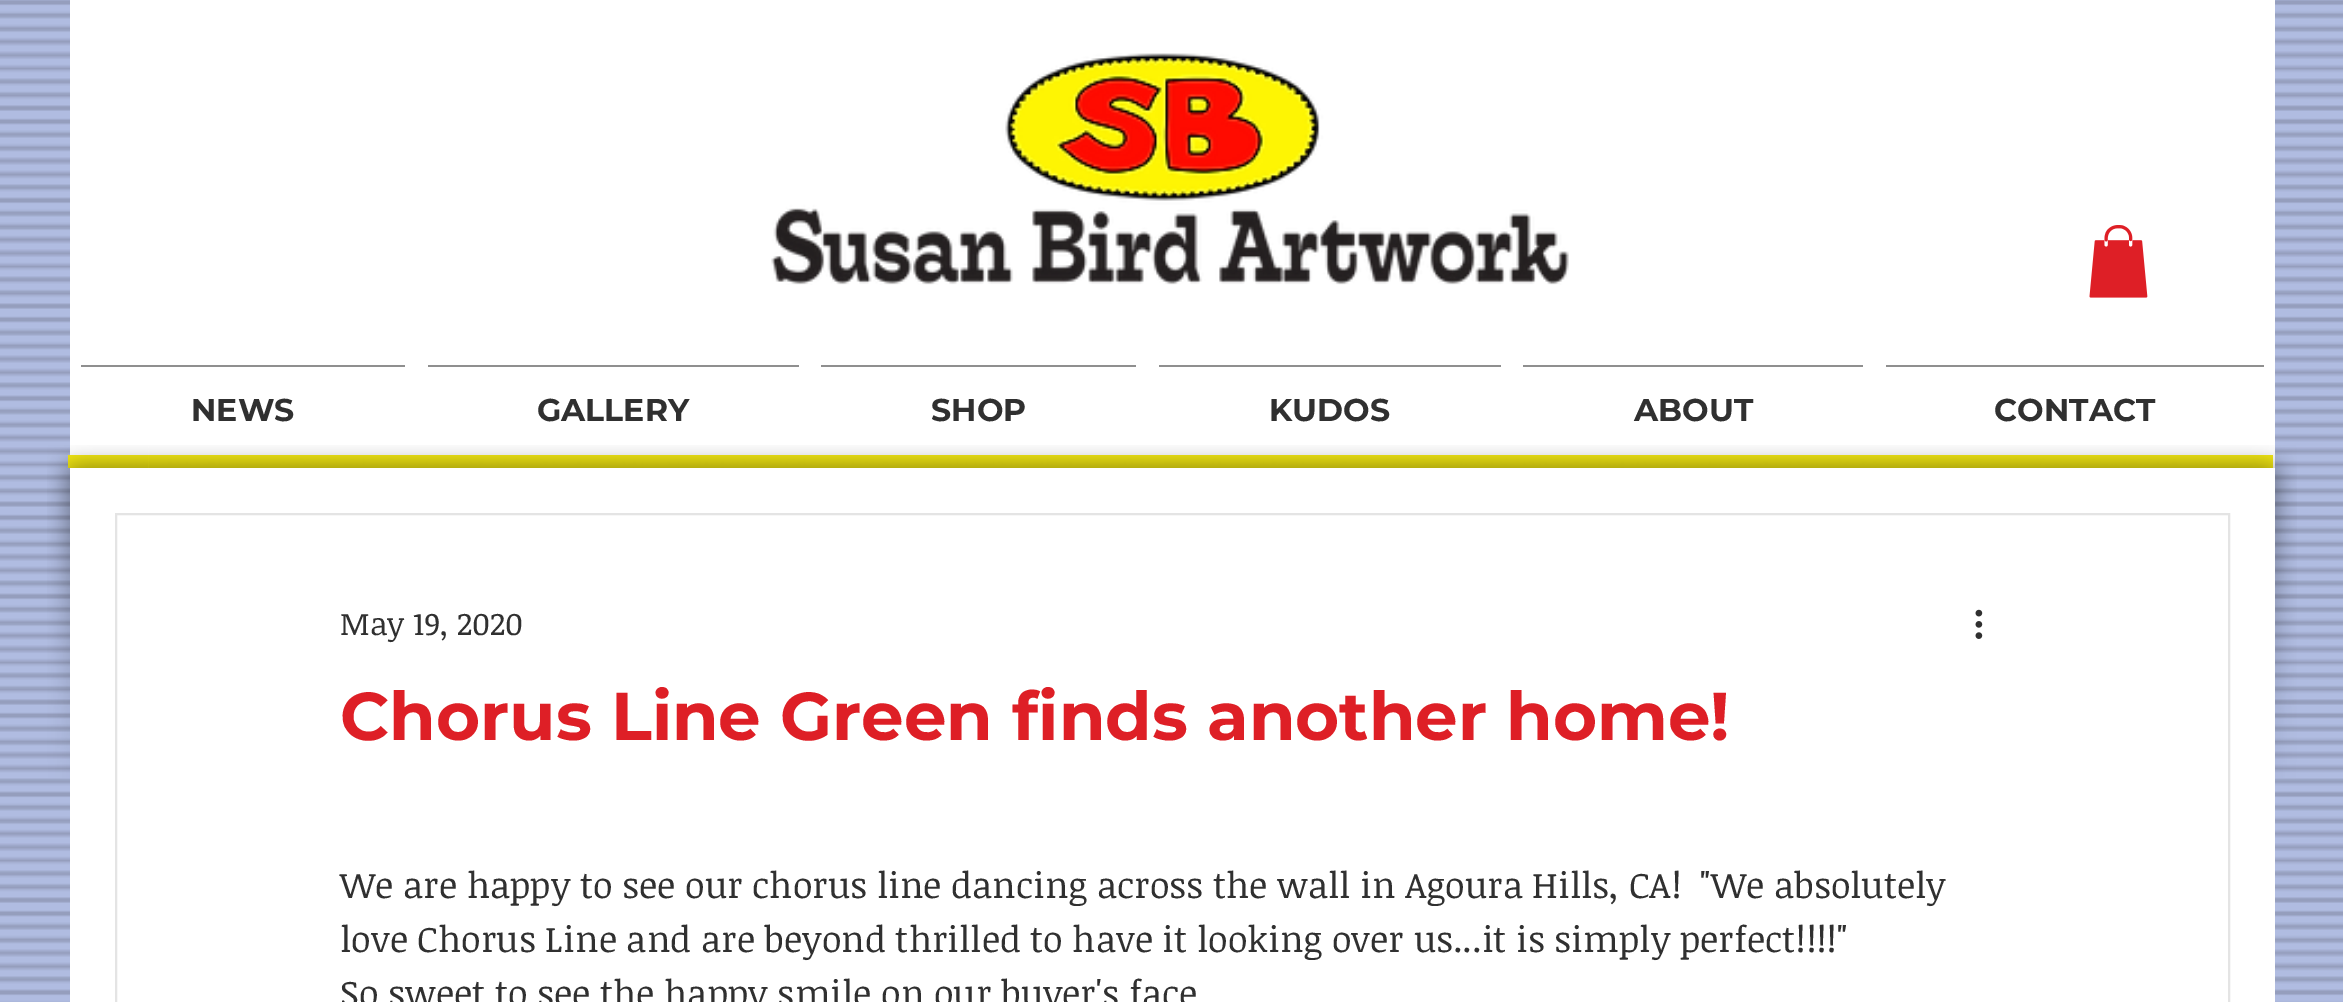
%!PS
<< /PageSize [2343 1002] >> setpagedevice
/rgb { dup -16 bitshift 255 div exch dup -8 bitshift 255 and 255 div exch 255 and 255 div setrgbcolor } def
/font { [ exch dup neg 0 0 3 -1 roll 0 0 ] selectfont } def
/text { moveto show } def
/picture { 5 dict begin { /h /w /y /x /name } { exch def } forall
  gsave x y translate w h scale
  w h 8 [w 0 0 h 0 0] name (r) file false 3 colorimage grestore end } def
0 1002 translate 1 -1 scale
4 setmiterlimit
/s1 { /Montserrat-Bold 31.5 font 16#303030 rgb } def
/s2 { /NoticiaText-Regular 31.5 font 16#303030 rgb } def
/s3 { /Montserrat-Bold 67.5 font 16#DE1F26 rgb } def
/s4 { /NoticiaText-Regular 36 font 16#303030 rgb } def
16#B0BCE1 rgb
0 0 2343 1002 rectfill
(pic1.raw) 0 0 2343 1002 picture
16#FFFFFF rgb
70 0 2205 468 rectfill
(pic2.raw) 771 53 798 232 picture
(pic3.raw) 2089 225 59 73 picture
16#8F8F8F rgb
81 365 324 2 rectfill
s1
(NEWS) 191 421 text
16#8F8F8F rgb
428 365 371 2 rectfill
s1
(GALLERY) 537 421 text
16#8F8F8F rgb
821 365 315 2 rectfill
s1
(SHOP) 931 421 text
16#8F8F8F rgb
1159 365 342 2 rectfill
s1
(KUDOS) 1269 421 text
16#8F8F8F rgb
1523 365 340 2 rectfill
s1
(ABOUT) 1634 421 text
16#8F8F8F rgb
1886 365 378 2 rectfill
s1
(CONTACT) 1994 421 text
16#F6EB14 rgb
68 455 2205 13 rectfill
(pic4.raw) 47 445 102 333 picture
(pic5.raw) 148 445 2048 23 picture
(pic6.raw) 2196 445 101 333 picture
16#FFFFFF rgb
70 468 2205 534 rectfill
16#E4E4E4 rgb
2 setlinewidth
116 514 2113 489 rectstroke
s2
(May 19, 2020) 340 635 text
(pic7.raw) 1975 609 8 30 picture
s3
(Chorus Line Green finds another home!) 340 740 text
s4
(We are happy to see our chorus line dancing across the wall in Agoura Hills, CA!) 340 898 text
("We absolutely) 1700 898 text
(love Chorus Line and are beyond thrilled to have it looking over us...it is simply perfect!!!!") 340 952 text
(So sweet to see the happy smile on our buyer's face) 340 1006 text
showpage
